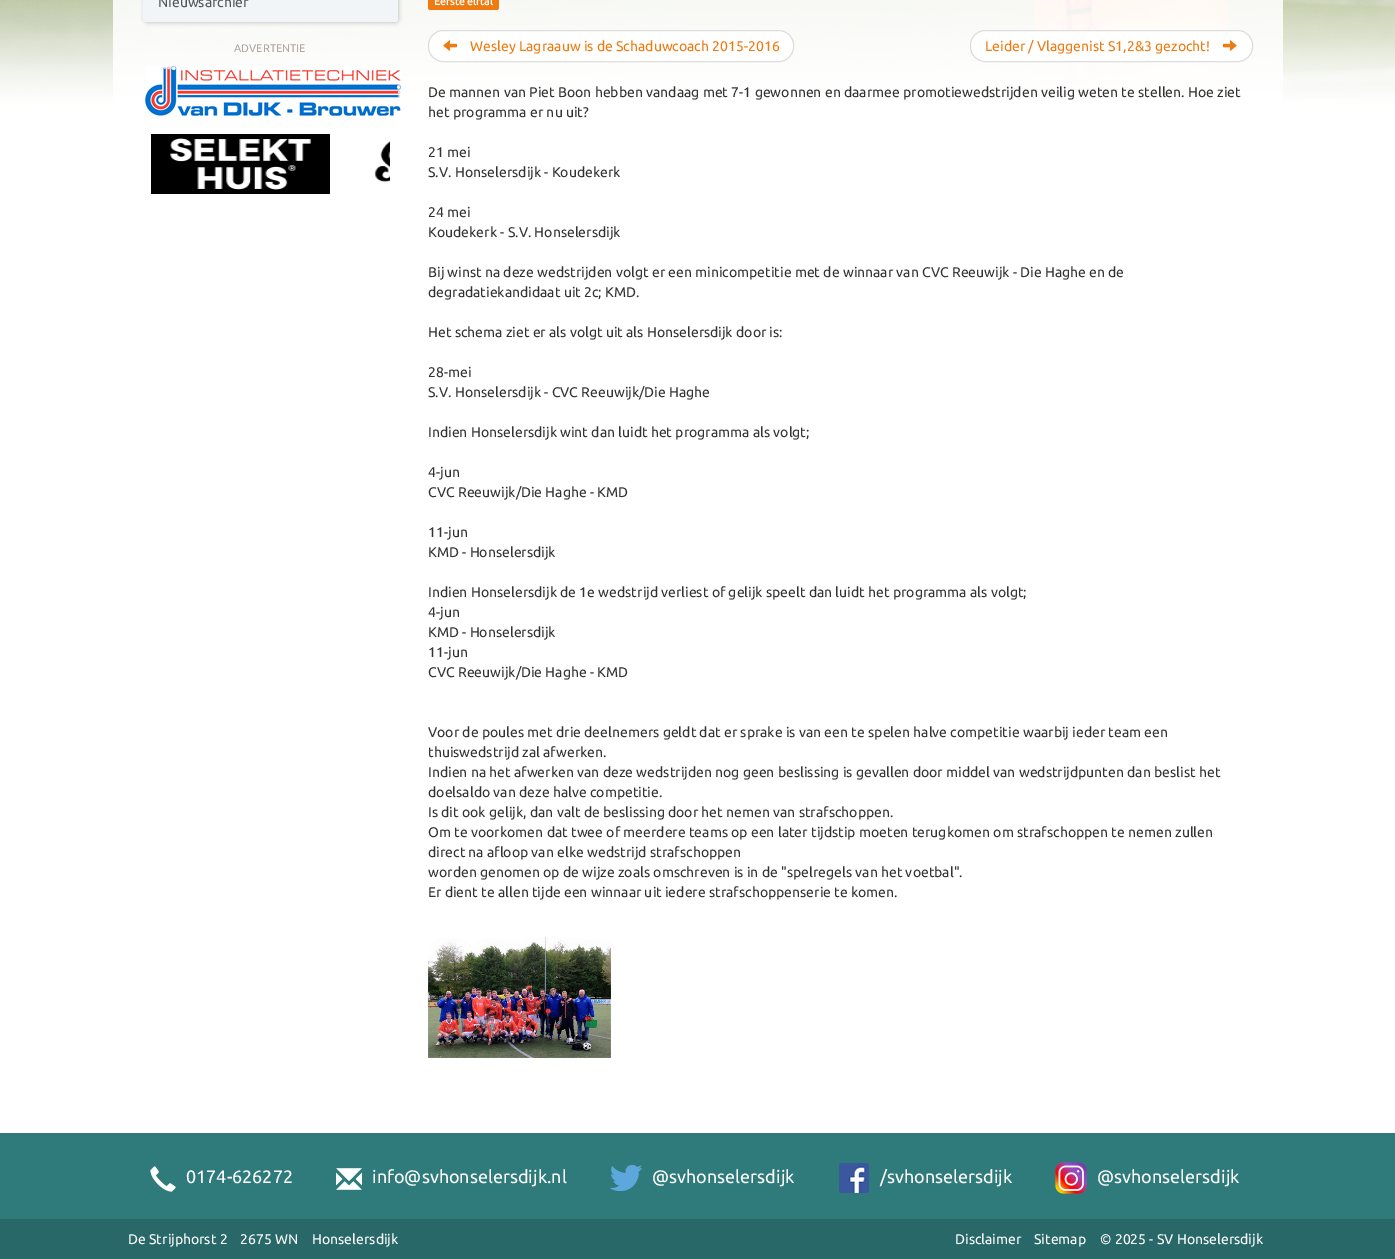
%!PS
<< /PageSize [1395 1259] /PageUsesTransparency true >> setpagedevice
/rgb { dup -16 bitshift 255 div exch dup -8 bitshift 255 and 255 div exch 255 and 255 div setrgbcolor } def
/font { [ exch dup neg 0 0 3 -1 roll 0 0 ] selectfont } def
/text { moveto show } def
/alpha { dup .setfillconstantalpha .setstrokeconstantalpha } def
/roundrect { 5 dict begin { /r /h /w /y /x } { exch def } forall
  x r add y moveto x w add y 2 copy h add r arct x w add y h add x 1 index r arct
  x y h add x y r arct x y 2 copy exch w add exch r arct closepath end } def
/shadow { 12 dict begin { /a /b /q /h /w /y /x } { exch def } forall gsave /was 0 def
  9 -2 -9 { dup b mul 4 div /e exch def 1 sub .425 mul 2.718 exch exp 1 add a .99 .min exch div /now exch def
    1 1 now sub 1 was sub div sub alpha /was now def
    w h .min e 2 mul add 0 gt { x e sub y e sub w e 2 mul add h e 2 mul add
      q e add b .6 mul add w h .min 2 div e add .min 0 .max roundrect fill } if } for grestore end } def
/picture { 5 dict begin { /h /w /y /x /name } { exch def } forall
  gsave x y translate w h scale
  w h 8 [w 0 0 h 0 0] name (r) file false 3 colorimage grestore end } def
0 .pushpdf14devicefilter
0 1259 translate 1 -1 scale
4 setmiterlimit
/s1 { /Ubuntu-Regular 14 font 16#555555 rgb } def
/s2 { /Ubuntu-Regular 11 font 16#AEA79F rgb } def
/s3 { /Ubuntu-Bold 10.5 font 16#FFFFFF rgb } def
/s4 { /Ubuntu-Regular 14 font 16#EE7A10 rgb } def
/s5 { /Ubuntu-Regular 14 font 16#333333 rgb } def
/s6 { /Ubuntu-Regular 18 font 16#FFFFFF rgb } def
/s7 { /Ubuntu-Regular 14 font 16#FFFFFF rgb } def
16#FFFFFF rgb
0 0 1395 1259 rectfill
(pic1.raw) 0 0 1395 103 picture
(pic2.raw) 0 0 1395 111 picture
0.87 alpha
113 -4 1170 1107 4 roundrect fill
1 alpha
16#777777 rgb
144 -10 255 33 4 2 0.35 shadow
16#F1F5F7 rgb
143 -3 moveto 398 -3 lineto 398 19 lineto 398 20.5 396.5 22 395 22 curveto 146 22 lineto 144.5 22 143 20.5 143 19 curveto closepath fill
s1
(Nieuwsarchief) 158 7 text
s2
(ADVERTENTIE) 234 52 text
(pic3.raw) 145 66 256 50 picture
(pic4.raw) 151 134 179 60 picture
(pic5.raw) 374 141 16 41 picture
16#EE7A10 rgb
428 -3 71 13 2.5 roundrect fill
s3
(Eerste elftal) 434 5 text
428.5 30.5 365 31 14.5 roundrect gsave fill grestore
16#DDDDDD rgb
stroke
(pic6.raw) 443 40 14 11 picture
s4
(Wesley Lagraauw is de Schaduwcoach 2015-2016) 470 51 text
16#FFFFFF rgb
970.5 30.5 282 31 14.5 roundrect gsave fill grestore
16#DDDDDD rgb
stroke
s4
(Leider / Vlaggenist S1,2&3 gezocht!) 985 51 text
(pic7.raw) 1223 40 14 11 picture
s5
(De mannen van Piet Boon hebben vandaag met 7-1 gewonnen en daarmee promotiewedstrijden veilig weten te stellen. Hoe ziet) 428 97 text
(het programma er nu uit?) 428 117 text
(21 mei) 428 157 text
(S.V. Honselersdijk - Koudekerk) 428 177 text
(24 mei) 428 217 text
(Koudekerk - S.V. Honselersdijk) 428 237 text
(Bij winst na deze wedstrijden volgt er een minicompetitie met de winnaar van CVC Reeuwijk - Die Haghe en de) 428 277 text
(degradatiekandidaat uit 2c; KMD.) 428 297 text
(Het schema ziet er als volgt uit als Honselersdijk door is:) 428 337 text
(28-mei) 428 377 text
(S.V. Honselersdijk - CVC Reeuwijk/Die Haghe) 428 397 text
(Indien Honselersdijk wint dan luidt het programma als volgt;) 428 437 text
(4-jun) 428 477 text
(CVC Reeuwijk/Die Haghe - KMD) 428 497 text
(11-jun) 428 537 text
(KMD - Honselersdijk) 428 557 text
(Indien Honselersdijk de 1e wedstrijd verliest of gelijk speelt dan luidt het programma als volgt;) 428 597 text
(4-jun) 428 617 text
(KMD - Honselersdijk) 428 637 text
(11-jun) 428 657 text
(CVC Reeuwijk/Die Haghe - KMD) 428 677 text
(Voor de poules met drie deelnemers geldt dat er sprake is van een te spelen halve competitie waarbij ieder team een) 428 737 text
(thuiswedstrijd zal afwerken.) 428 757 text
(Indien na het afwerken van deze wedstrijden nog geen beslissing is gevallen door middel van wedstrijdpunten dan beslist het) 428 777 text
(doelsaldo van deze halve competitie.) 428 797 text
(Is dit ook gelijk, dan valt de beslissing door het nemen van strafschoppen.) 428 817 text
(Om te voorkomen dat twee of meerdere teams op een later tijdstip moeten terugkomen om strafschoppen te nemen zullen) 428 837 text
(direct na afloop van elke wedstrijd strafschoppen) 428 857 text
(worden genomen op de wijze zoals omschreven is in de "spelregels van het voetbal".) 428 877 text
(Er dient te allen tijde een winnaar uit iedere strafschoppenserie te komen.) 428 897 text
(pic8.raw) 428 937 183 121 picture
16#2F7B7B rgb
0 1133 1395 86 rectfill
(pic9.raw) 150 1166 26 26 picture
s6
(0174-626272) 186 1183 text
(pic10.raw) 336 1168 26 22 picture
(info@svhonselersdijk.nl) 372 1183 text
(pic11.raw) 610 1165 32 26 picture
(@svhonselersdijk) 652 1183 text
(pic12.raw) 839 1163 30 30 picture
(/svhonselersdijk) 880 1183 text
(pic13.raw) 1055 1162 32 32 picture
(@svhonselersdijk) 1097 1183 text
16#286868 rgb
0 1219 1395 40 rectfill
s7
(De Strijphorst 2) 128 1244 text
(2675 WN) 240 1244 text
(Honselersdijk) 312 1244 text
(Disclaimer) 955 1244 text
(Sitemap) 1034 1244 text
(© 2025 - SV Honselersdijk) 1100 1244 text
.poppdf14devicefilter showpage
